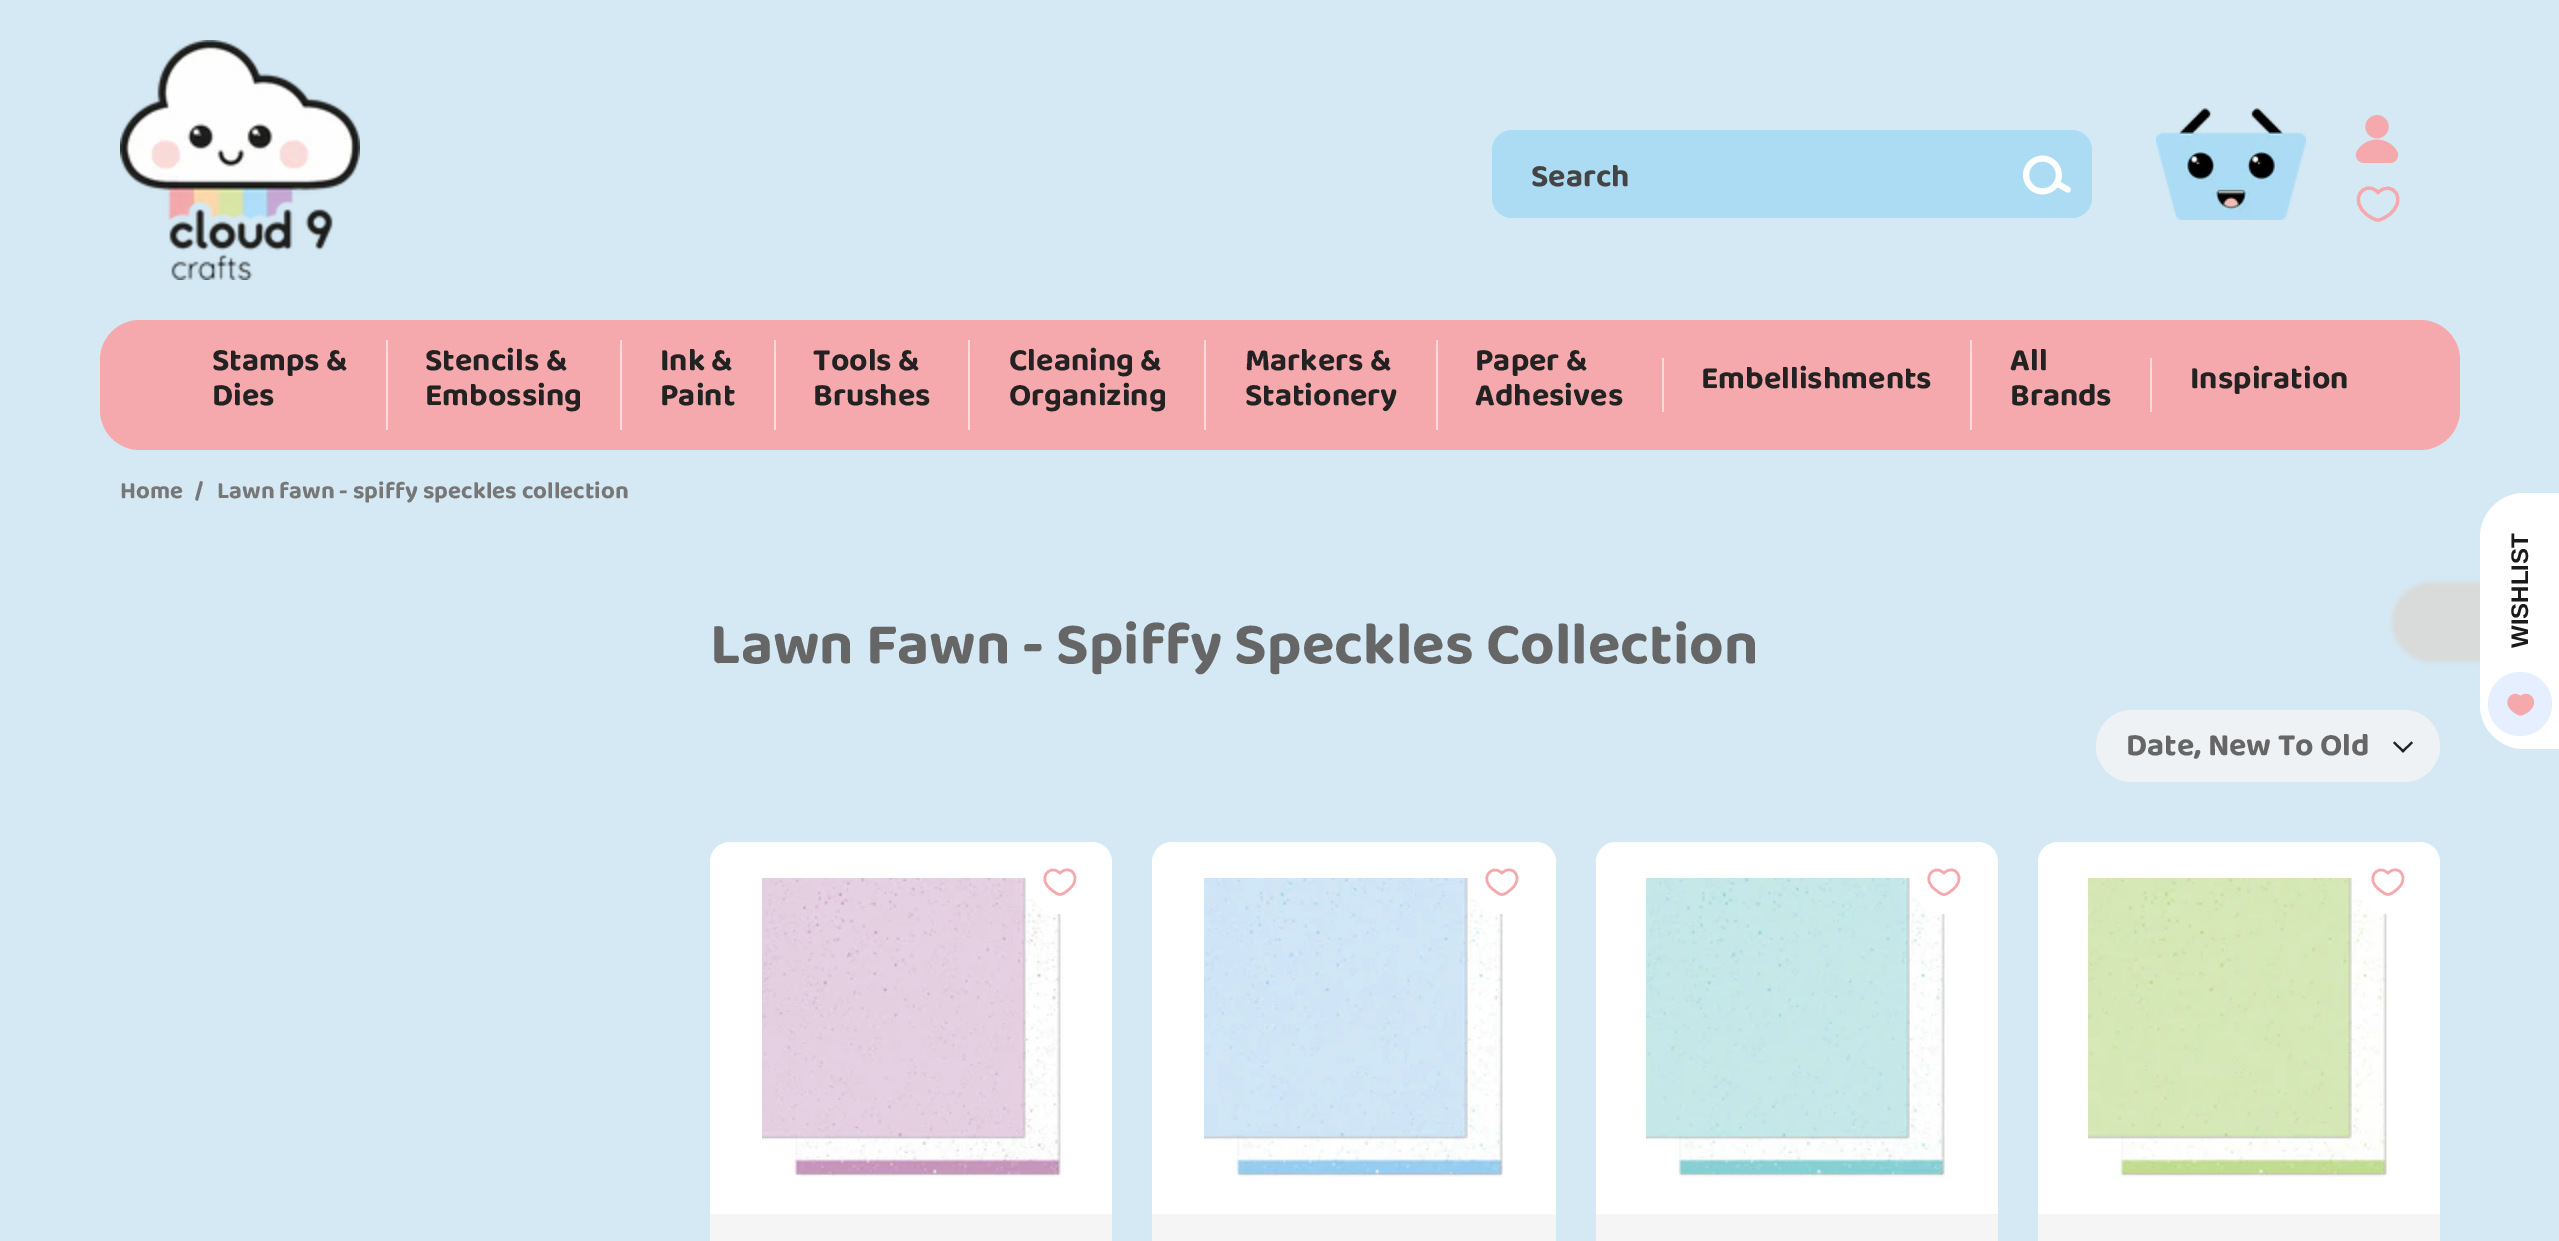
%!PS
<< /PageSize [2559 1241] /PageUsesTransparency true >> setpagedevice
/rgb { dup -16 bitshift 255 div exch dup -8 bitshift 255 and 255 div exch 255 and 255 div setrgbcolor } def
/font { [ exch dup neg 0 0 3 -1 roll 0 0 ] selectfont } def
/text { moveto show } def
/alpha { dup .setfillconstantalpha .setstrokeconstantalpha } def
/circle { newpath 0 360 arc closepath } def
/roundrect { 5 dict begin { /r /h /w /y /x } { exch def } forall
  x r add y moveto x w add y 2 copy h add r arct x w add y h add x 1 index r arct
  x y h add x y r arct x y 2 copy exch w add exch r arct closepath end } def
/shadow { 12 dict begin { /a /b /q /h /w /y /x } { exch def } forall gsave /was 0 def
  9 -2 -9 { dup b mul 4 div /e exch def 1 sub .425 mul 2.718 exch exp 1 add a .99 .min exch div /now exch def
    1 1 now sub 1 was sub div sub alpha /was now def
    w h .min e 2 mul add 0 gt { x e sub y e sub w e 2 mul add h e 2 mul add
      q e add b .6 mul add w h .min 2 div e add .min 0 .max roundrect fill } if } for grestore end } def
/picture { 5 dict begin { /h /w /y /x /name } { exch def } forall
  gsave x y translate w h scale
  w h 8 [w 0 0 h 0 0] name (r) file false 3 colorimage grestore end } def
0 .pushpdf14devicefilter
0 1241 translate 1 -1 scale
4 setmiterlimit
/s1 { /Baloo2-Bold 32 font 16#444444 rgb } def
/s2 { /Baloo2-Bold 32 font 16#222222 rgb } def
/s3 { /Baloo2-Bold 24 font 16#777777 rgb } def
/s4 { /Baloo2-Bold 60 font 16#666666 rgb } def
/s5 { /Baloo2-Bold 32 font 16#666666 rgb } def
16#D4E9F4 rgb
0 0 2559 1241 rectfill
(pic1.raw) 120 40 240 240 picture
16#ABDCF4 rgb
1492 130 600 88 20 roundrect fill
(pic2.raw) 2023 155 48 40 picture
s1
(Search) 1531 186 text
(pic3.raw) 2156 108 150 112 picture
(pic4.raw) 2355 115 44 48 picture
16#F5A9AC rgb
3.2 setlinewidth
2377 191.5 moveto 2378 192.5 lineto 2392.5 178.5 2409 201 2388 215.5 curveto 2385.5 217 2381.5 220 2378 220 curveto 2374.5 220 2370.5 217 2368 215.5 curveto 2347 200.5 2364.5 179.5 2377 191.5 curveto closepath stroke
100 320 2360 130 40 roundrect fill
s2
(Stamps &) 212 370 text
(Dies) 212 405 text
16#FADADA rgb
386 340 2 90 rectfill
s2
(Stencils &) 425 370 text
(Embossing) 425 405 text
16#FADADA rgb
620 340 2 90 rectfill
s2
(Ink &) 660 370 text
(Paint) 660 405 text
16#FADADA rgb
774 340 2 90 rectfill
s2
(Tools &) 813 370 text
(Brushes) 813 405 text
16#FADADA rgb
968 340 2 90 rectfill
s2
(Cleaning &) 1009 370 text
(Organizing) 1009 405 text
16#FADADA rgb
1204 340 2 90 rectfill
s2
(Markers &) 1245 370 text
(Stationery) 1245 405 text
16#FADADA rgb
1436 340 2 90 rectfill
s2
(Paper &) 1475 370 text
(Adhesives) 1475 405 text
16#FADADA rgb
1662 358 2 54 rectfill
s2
(Embellishments) 1701 388 text
16#FADADA rgb
1970 340 2 90 rectfill
s2
(All) 2010 370 text
(Brands) 2010 405 text
16#FADADA rgb
2150 358 2 54 rectfill
s2
(Inspiration) 2190 388 text
s3
(Home) 120 498 text
(/) 195 498 text
(Lawn fawn - spiffy speckles collection) 217 498 text
16#DADADA rgb
2392 582 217 80 44 2 1 shadow
16#FFFFFF rgb
2480 705 moveto 2480 537 lineto 2480 513 2500 493 2524 493 curveto 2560 493 lineto 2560 749 lineto 2524 749 lineto 2500 749 2480 729 2480 705 curveto closepath fill
/LiberationSans-Bold 24 font
16#1A1A1A rgb
gsave 2528 648 translate -90 rotate 0 0 moveto (WISHLIST) show grestore
16#E6EFFF rgb
2520 704 32 circle fill
16#F5A9AC rgb
2520.5 696 moveto 2512.5 688.5 2499.5 702.5 2514 712.5 curveto 2515.5 713.5 2518.5 715.5 2520.5 715.5 curveto 2523 715.5 2525.5 713.5 2527.5 712.5 curveto 2542 702.5 2529 688.5 2520.5 696 curveto closepath fill
s4
(Lawn Fawn - Spiffy Speckles Collection) 710 663 text
16#EEF2F4 rgb
2096 710 344 72 36 roundrect fill
s5
(Date, New To Old) 2126 755 text
16#222222 rgb
2411.5 741.5 moveto 2413 743 lineto 2403 752.5 lineto 2401.5 751 lineto closepath fill
2394.5 741.5 moveto 2404.5 751 lineto 2403 752.5 lineto 2393 743 lineto closepath fill
16#FFFFFF rgb
710 842 402 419 20 roundrect fill
(pic5.raw) 762 878 299 299 picture
1060 882 32 circle fill
16#F5A9AC rgb
2.5 setlinewidth
1059 872.5 moveto 1060 873 lineto 1071 862.5 1083.5 879.5 1067.5 890.5 curveto 1066 892 1062.5 894.5 1060 894.5 curveto 1057.5 894.5 1054 892 1052.5 890.5 curveto 1035.5 879.5 1050 863.5 1059 872.5 curveto closepath stroke
16#F5F5F5 rgb
710 1214 402 27 rectfill
16#FFFFFF rgb
1152 842 404 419 20 roundrect fill
(pic6.raw) 1204 878 299 299 picture
1502 882 32 circle fill
16#F5A9AC rgb
1501 872.5 moveto 1502 873 lineto 1513 862.5 1525.5 879.5 1509.5 890.5 curveto 1508 892 1504.5 894.5 1502 894.5 curveto 1499.5 894.5 1496 892 1494.5 890.5 curveto 1477.5 879.5 1492 863.5 1501 872.5 curveto closepath stroke
16#F5F5F5 rgb
1152 1214 404 27 rectfill
16#FFFFFF rgb
1596 842 402 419 20 roundrect fill
(pic7.raw) 1646 878 299 300 picture
1944 882 32 circle fill
16#F5A9AC rgb
1943 872.5 moveto 1944 873 lineto 1955 862.5 1967.5 879.5 1951.5 890.5 curveto 1950 892 1946.5 894.5 1944 894.5 curveto 1941.5 894.5 1938 892 1936.5 890.5 curveto 1919.5 879.5 1934 863.5 1943 872.5 curveto closepath stroke
16#F5F5F5 rgb
1596 1214 402 27 rectfill
16#FFFFFF rgb
2038 842 402 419 20 roundrect fill
(pic8.raw) 2088 878 300 300 picture
2388 882 32 circle fill
16#F5A9AC rgb
2387 872.5 moveto 2388 873 lineto 2399 862.5 2411.5 879.5 2395.5 890.5 curveto 2394 892 2390.5 894.5 2388 894.5 curveto 2385.5 894.5 2382 892 2380.5 890.5 curveto 2363.5 879.5 2378 863.5 2387 872.5 curveto closepath stroke
16#F5F5F5 rgb
2038 1214 402 27 rectfill
.poppdf14devicefilter showpage
